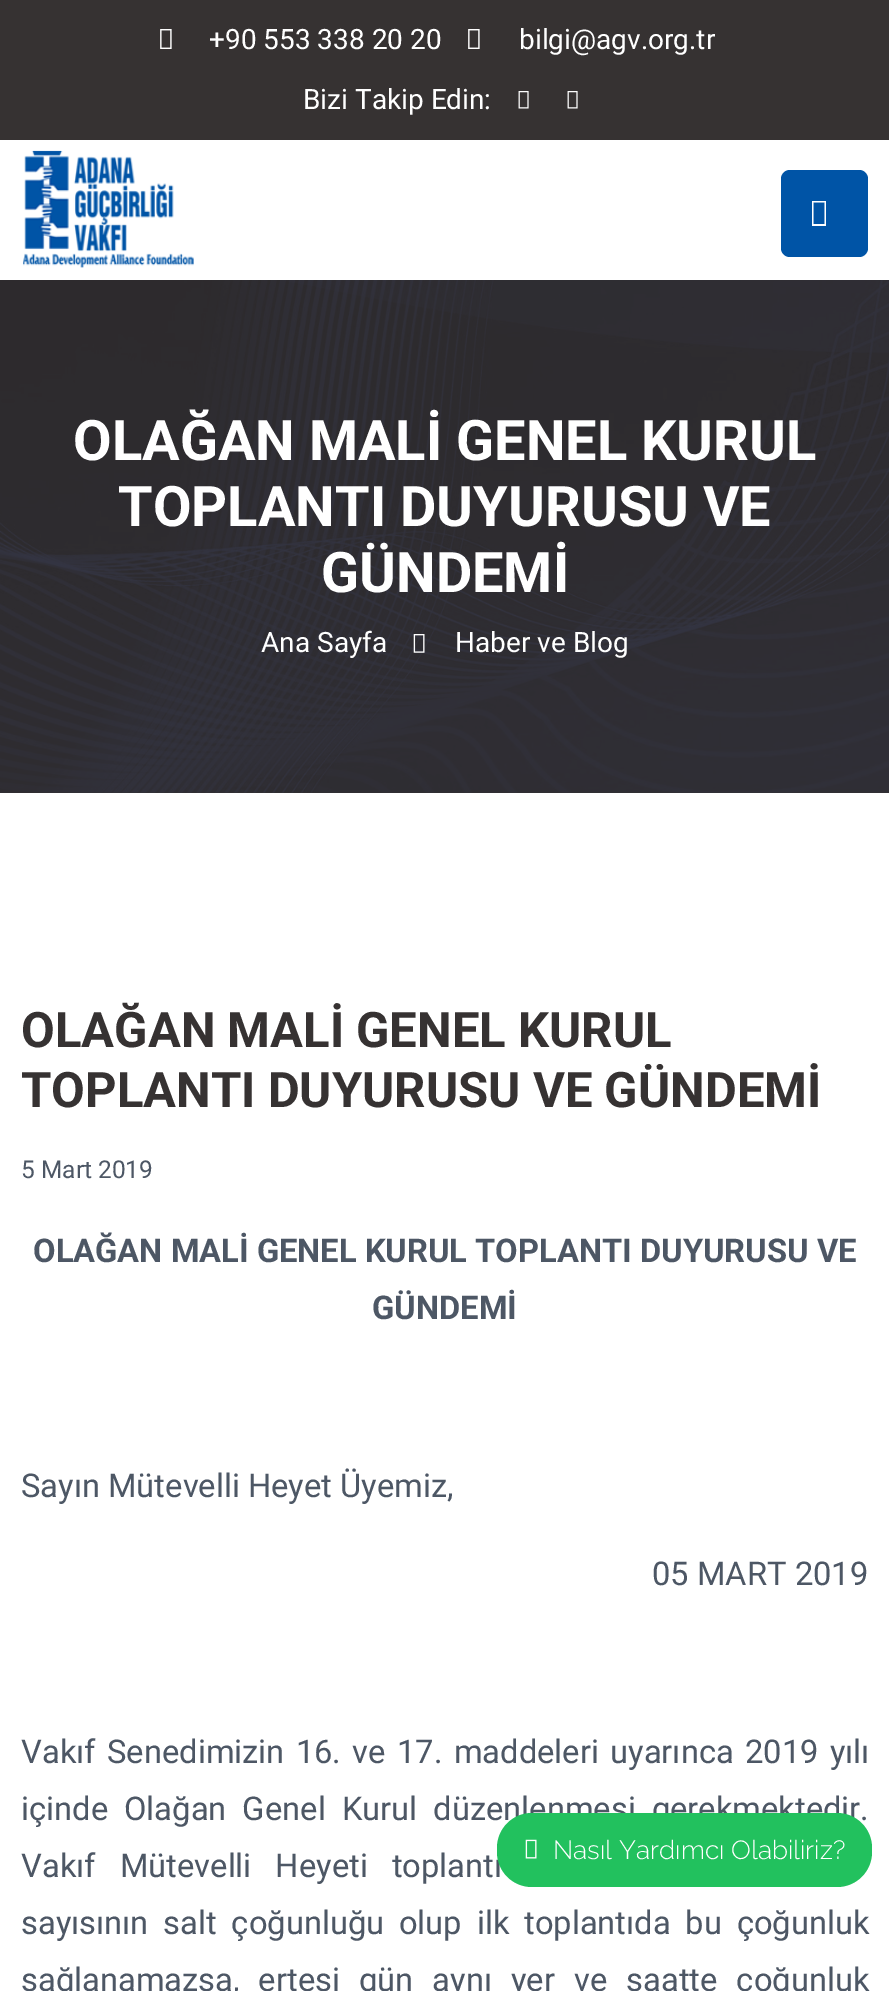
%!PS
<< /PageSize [889 1991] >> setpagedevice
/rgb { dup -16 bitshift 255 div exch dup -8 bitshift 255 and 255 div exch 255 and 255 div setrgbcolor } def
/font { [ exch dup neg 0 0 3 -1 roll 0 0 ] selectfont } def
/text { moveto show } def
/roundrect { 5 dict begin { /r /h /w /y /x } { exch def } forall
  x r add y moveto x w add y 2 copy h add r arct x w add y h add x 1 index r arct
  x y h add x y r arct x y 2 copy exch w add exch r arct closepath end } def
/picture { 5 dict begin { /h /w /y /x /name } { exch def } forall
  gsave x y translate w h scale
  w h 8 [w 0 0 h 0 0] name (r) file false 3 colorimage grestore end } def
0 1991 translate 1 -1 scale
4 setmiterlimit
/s1 { /Roboto-Regular 28 font 16#FFFFFF rgb } def
/s2 { /Roboto-Bold 56 font 16#FFFFFF rgb } def
/s3 { /Roboto-Bold 49 font 16#363232 rgb } def
/s4 { /Roboto-Regular 24.5 font 16#4D5765 rgb } def
/s5 { /Roboto-Bold 32.7 font 16#4D5765 rgb } def
/s6 { /Roboto-Regular 32.7 font 16#4D5765 rgb } def
/s7 { /Raleway-Light 26.25 font 16#FFFFFF rgb } def
16#FFFFFF rgb
0 0 889 1991 rectfill
16#363232 rgb
0 0 889 140 rectfill
(pic1.raw) 160 29 12 20 picture
s1
(+90 553 338 20 20) 209 49 text
(pic1.raw) 468 29 12 20 picture
(bilgi@agv.org.tr) 519 49 text
(Bizi Takip Edin:) 303 109 text
(pic2.raw) 518 91 11 18 picture
(pic2.raw) 567 91 11 18 picture
(pic3.raw) 23 150 171 118 picture
16#0054A6 rgb
781 170 87 87 9 roundrect fill
16#FFFFFF rgb
812 226 moveto 812 201 lineto 826 201 lineto 826 226 lineto closepath 813.5 224 moveto 824.5 224 lineto 824.5 202.5 lineto 813.5 202.5 lineto closepath fill
(pic4.raw) 0 280 889 513 picture
s2
(OLAĞAN MALİ GENEL KURUL) 73 460 text
(TOPLANTI DUYURUSU VE) 118 526 text
(GÜNDEMİ) 321 592 text
s1
(Ana Sayfa) 261 652 text
(pic5.raw) 413 634 12 19 picture
(Haber ve Blog) 455 652 text
s3
(OLAĞAN MALİ GENEL KURUL) 21 1047 text
(TOPLANTI DUYURUSU VE GÜNDEMİ) 21 1107 text
s4
(5 Mart 2019) 21 1178 text
s5
(OLAĞAN MALİ GENEL KURUL TOPLANTI DUYURUSU VE) 33 1262 text
(GÜNDEMİ) 372 1319 text
s6
(Sayın Mütevelli Heyet Üyemiz,) 21 1497 text
(05 MART 2019) 652 1585 text
21 1763 moveto 3.25 0 32 (Vakıf Senedimizin 16. ve 17. maddeleri uyarınca 2019 yılı) widthshow
21 1820 moveto 8 0 32 (içinde Olağan Genel Kurul düzenlenmesi gerekmektedir.) widthshow
21 1877 moveto 16 0 32 (Vakıf Mütevelli Heyeti toplantı) widthshow
21 1934 moveto 6.75 0 32 (sayısının salt çoğunluğu olup ilk toplantıda bu çoğunluk) widthshow
21 1991 moveto 11 0 32 (sağlanamazsa, ertesi gün aynı yer ve saatte çoğunluk) widthshow
16#22C15E rgb
497 1813 375 74 35 roundrect fill
(pic6.raw) 525 1839 12 20 picture
s7
(Nasıl Yardımcı Olabiliriz?) 553 1859 text
showpage
